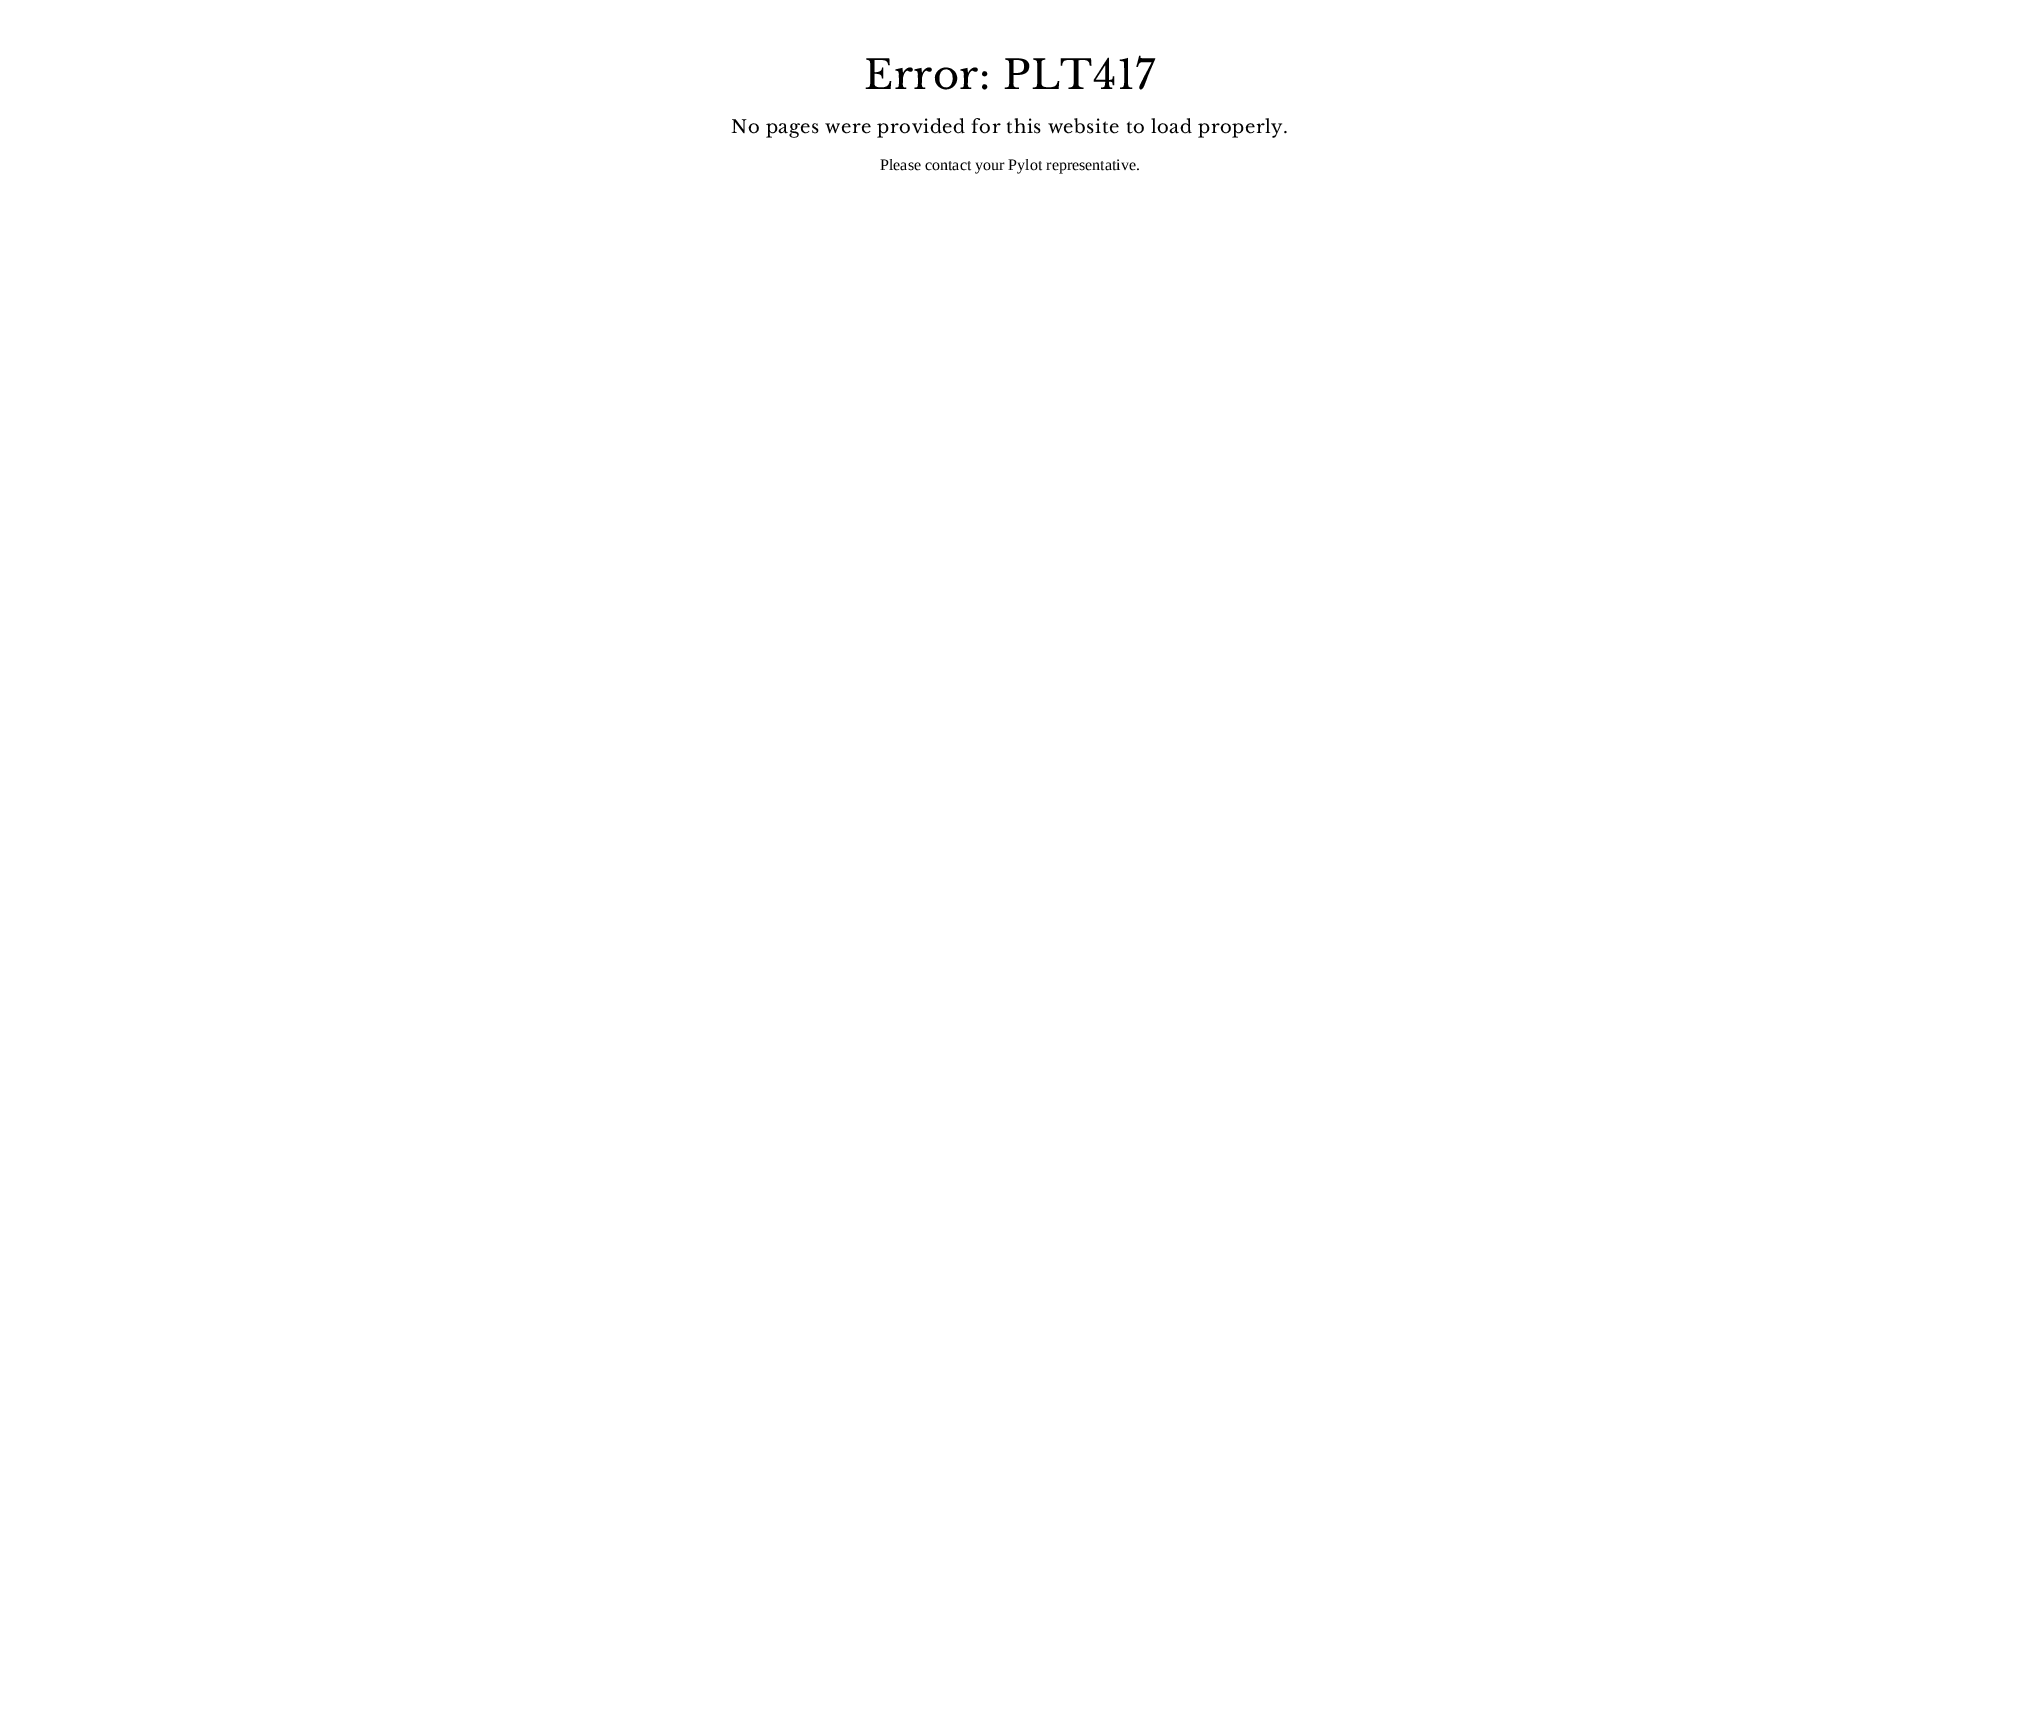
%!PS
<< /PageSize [2020 1714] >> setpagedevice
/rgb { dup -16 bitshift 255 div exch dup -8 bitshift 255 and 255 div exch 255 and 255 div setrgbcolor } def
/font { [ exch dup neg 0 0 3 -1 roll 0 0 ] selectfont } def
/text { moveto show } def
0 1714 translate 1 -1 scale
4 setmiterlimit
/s1 { /LiberationSerif-Regular 16 font 16#000000 rgb } def
16#FFFFFF rgb
0 0 2020 1714 rectfill
/LibreBaskerville-Regular 40 font
16#000000 rgb
864 89 moveto 0.5 0 (Error: PLT417) ashow
/LibreBaskerville-Regular 18 font
731 133 moveto 0.5 0 (No pages were provided for this website to load properly.) ashow
s1
(Please contact your Pylot representative.) 880 170 text
showpage
